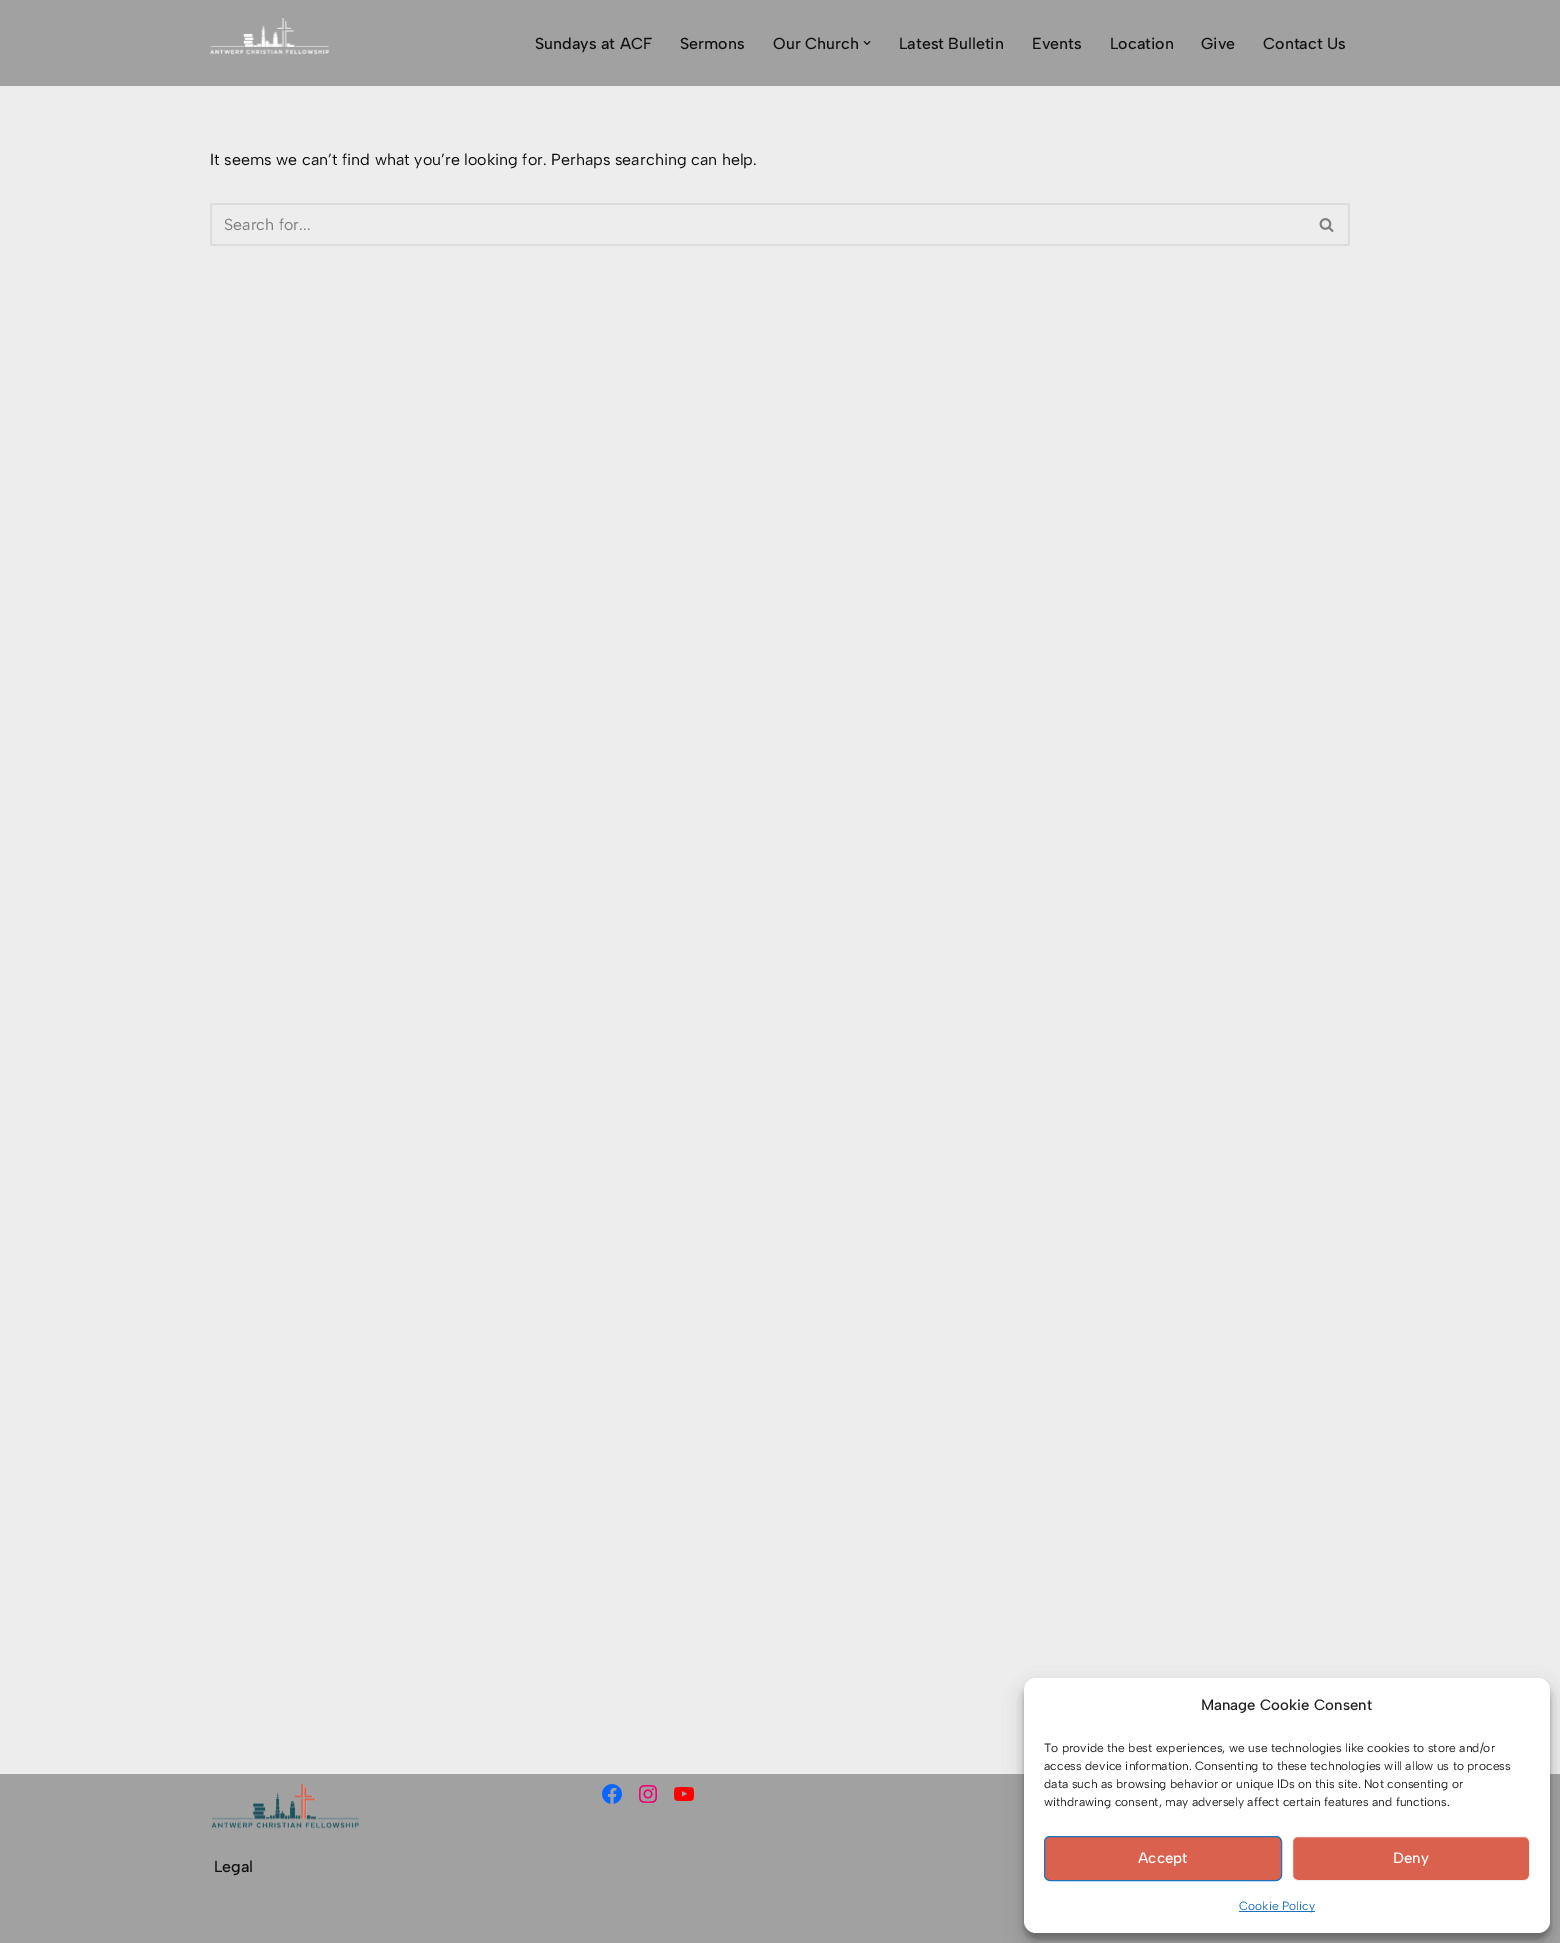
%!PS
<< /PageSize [1560 1943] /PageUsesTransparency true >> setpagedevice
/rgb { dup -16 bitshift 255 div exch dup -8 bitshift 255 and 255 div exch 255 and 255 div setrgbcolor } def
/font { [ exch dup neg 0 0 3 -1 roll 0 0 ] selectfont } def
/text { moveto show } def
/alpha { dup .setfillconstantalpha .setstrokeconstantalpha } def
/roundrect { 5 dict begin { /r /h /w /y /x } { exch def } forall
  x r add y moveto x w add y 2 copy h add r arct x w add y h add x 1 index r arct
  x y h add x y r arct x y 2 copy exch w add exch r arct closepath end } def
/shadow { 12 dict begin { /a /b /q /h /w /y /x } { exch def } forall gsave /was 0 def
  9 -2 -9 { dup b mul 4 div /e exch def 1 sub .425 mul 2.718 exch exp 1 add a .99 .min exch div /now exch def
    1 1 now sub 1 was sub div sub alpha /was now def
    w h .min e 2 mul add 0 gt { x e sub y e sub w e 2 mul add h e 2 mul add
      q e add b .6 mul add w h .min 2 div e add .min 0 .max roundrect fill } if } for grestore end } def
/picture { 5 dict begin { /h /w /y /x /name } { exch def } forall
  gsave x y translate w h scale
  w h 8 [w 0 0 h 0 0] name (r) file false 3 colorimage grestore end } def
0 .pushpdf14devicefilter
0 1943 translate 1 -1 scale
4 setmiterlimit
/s1 { /AlbertSans-Medium 16 font 16#101010 rgb } def
/s2 { /AlbertSans-Regular 16 font 16#101010 rgb } def
/s3 { /AlbertSans-Regular 16 font 16#7F7F7F rgb } def
/s4 { /AlbertSans-Medium 15 font 16#222222 rgb } def
/s5 { /AlbertSans-Regular 12 font 16#222222 rgb } def
/s6 { /AlbertSans-Medium 15 font 16#FFFFFF rgb } def
/s7 { /AlbertSans-Regular 12 font 16#1E73BE rgb } def
16#EDEDED rgb
0 0 1560 1943 rectfill
16#A1A1A1 rgb
0 0 1560 86 rectfill
(pic1.raw) 210 18 120 37 picture
s1
(Sundays at ACF) 535 49 text
(Sermons) 680 49 text
(Our Church) 773 49 text
(pic2.raw) 863 41 8 4 picture
(Latest Bulletin) 899 49 text
(Events) 1032 49 text
(Location) 1110 49 text
(Give) 1201 49 text
(Contact Us) 1263 49 text
s2
(It seems we can’t find what you’re looking for. Perhaps searching can help.) 210 165 text
16#DDDDDD rgb
213 203 moveto 1305 203 lineto 1305 246 lineto 213 246 lineto 211 246 210 245 210 243 curveto 210 206 lineto 210 204 211 203 213 203 curveto closepath 213 205 moveto 1305 205 lineto 1305 244 lineto 213 244 lineto 212 244 212 244 212 243 curveto 212 206 lineto 212 205 212 205 213 205 curveto closepath eofill
s3
(Search for...) 224 230 text
16#DDDDDD rgb
1305 203 moveto 1347 203 lineto 1349 203 1350 204 1350 206 curveto 1350 243 lineto 1350 245 1349 246 1347 246 curveto 1305 246 lineto closepath 1305 205 moveto 1347 205 lineto 1348 205 1348 205 1348 206 curveto 1348 243 lineto 1348 244 1348 244 1347 244 curveto 1305 244 lineto closepath eofill
(pic3.raw) 1319 218 15 14 picture
16#A1A1A1 rgb
0 1774 1560 169 rectfill
(pic4.raw) 211 1783 148 46 picture
(pic5.raw) 602 1784 20 20 picture
(pic6.raw) 639 1785 18 18 picture
(pic7.raw) 674 1787 20 14 picture
s1
(Legal) 214 1872 text
16#000000 rgb
1024 1684 526 255 12 3 0.23 shadow
1024 1688 526 255 12 10 0.19 shadow
16#FFFFFF rgb
1024 1678 526 255 12 roundrect fill
s4
(Manage Cookie Consent) 1201 1710 text
s5
(To provide the best experiences, we use technologies like cookies to store and/or) 1044 1752 text
(access device information. Consenting to these technologies will allow us to process) 1044 1770 text
(data such as browsing behavior or unique IDs on this site. Not consenting or) 1044 1788 text
(withdrawing consent, may adversely affect certain features and functions.) 1044 1806 text
16#D9614E rgb
1044.5 1836.5 237 44 5.5 roundrect gsave fill grestore
16#1E73BE rgb
stroke
s6
(Accept) 1138 1863 text
16#D9614E rgb
1292.5 1836.5 237 44 5.5 roundrect gsave fill grestore
16#F2F2F2 rgb
stroke
s6
(Deny) 1393 1863 text
16#1E73BE rgb
1239 1911 76 1 rectfill
s7
(Cookie Policy) 1239 1910 text
.poppdf14devicefilter showpage
